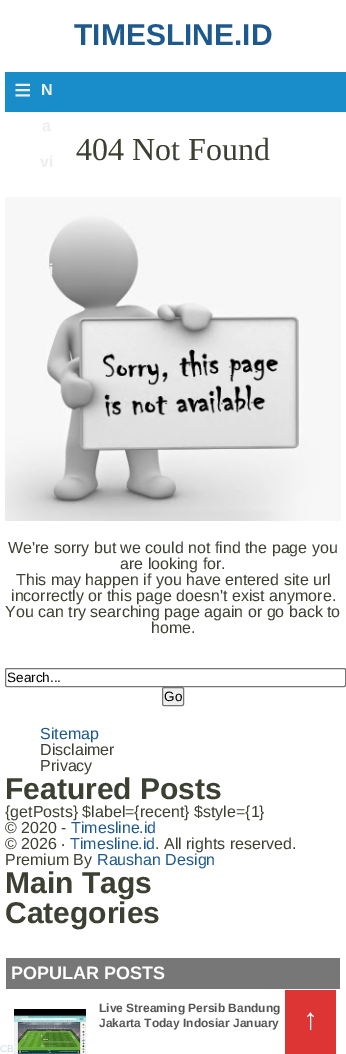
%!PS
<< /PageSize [346 1054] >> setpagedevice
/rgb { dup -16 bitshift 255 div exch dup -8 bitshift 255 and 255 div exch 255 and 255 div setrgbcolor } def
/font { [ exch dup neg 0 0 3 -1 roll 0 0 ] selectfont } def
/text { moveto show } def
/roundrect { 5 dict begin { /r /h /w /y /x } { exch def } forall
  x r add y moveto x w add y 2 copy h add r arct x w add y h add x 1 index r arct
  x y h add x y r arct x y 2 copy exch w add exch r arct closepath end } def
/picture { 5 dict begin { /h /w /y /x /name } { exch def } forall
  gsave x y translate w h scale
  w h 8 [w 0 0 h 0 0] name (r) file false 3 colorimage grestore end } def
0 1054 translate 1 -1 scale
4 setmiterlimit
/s1 { /LiberationSans-Bold 30 font 16#1E598E rgb } def
/s2 { /LiberationSans-Bold 30 font 16#EEEEEE rgb } def
/s3 { /LiberationSans-Bold 16 font 16#EEEEEE rgb } def
/s4 { /LiberationSerif-Regular 32 font 16#3C4032 rgb } def
/s5 { /LiberationSans-Regular 16 font 16#3C4032 rgb } def
/s6 { /LiberationSans-Regular 13.5 font 16#000000 rgb } def
/s7 { /LiberationSans-Regular 16 font 16#1E598E rgb } def
/s8 { /LiberationSans-Bold 30 font 16#3C4032 rgb } def
/s9 { /NotoSans-Regular 16 font 16#3C4032 rgb } def
/s10 { /LiberationSans-Bold 18 font 16#FFFFFF rgb } def
/s11 { /LiberationSans-Bold 12 font 16#555555 rgb } def
/s12 { /LiberationSans-Regular 30 font 16#FFFFFF rgb } def
/s13 { /LiberationSans-Regular 10 font 16#D2DEE8 rgb } def
16#FFFFFF rgb
0 0 346 1054 rectfill
s1
(TIMESLINE.ID) 74 45 text
16#198DC9 rgb
5 72 341 40 rectfill
s2
(≡) 14 100 text
s3
(N) 41 95 text
(a) 42 131 text
(vi) 40 167 text
(pic1.raw) 5 197 336 324 picture
(i) 49 275 text
s4
(404 Not Found) 76 160 text
s5
(We're sorry but we could not find the page you) 8 553 text
(are looking for.) 120 569 text
(This may happen if you have entered site url) 16 585 text
(incorrectly or this page doesn't exist anymore.) 11 601 text
(You can try searching page again or go back to) 5 617 text
(home.) 151 633 text
16#767676 rgb
5.5 668.5 340 18 1.5 roundrect stroke
s6
(Search...) 7 682 text
16#EFEFEF rgb
162.5 687.5 21 18 1.5 roundrect gsave fill grestore
16#767676 rgb
stroke
s6
(Go) 164 701 text
s7
(Sitemap) 40 739 text
s5
(Disclaimer) 40 755 text
(Privacy) 40 771 text
s8
(Featured Posts) 5 799 text
s5
({getPosts} $label={recent} $style={1}) 5 817 text
(© 2020 -) 5 833 text
s7
(Timesline.id) 71 833 text
s5
(© 2026) 5 849 text
s9
(‧) 61 849 text
s7
(Timesline.id) 70 849 text
s5
(. All rights reserved.) 155 849 text
(Premium By) 5 865 text
s7
(Raushan Design) 97 865 text
s8
(Main Tags) 5 893 text
(Categories) 5 923 text
16#777777 rgb
6 958 334 31 rectfill
s10
(POPULAR POSTS) 11 979 text
(pic2.raw) 14 1009 72 45 picture
s11
(Live Streaming Persib Bandung) 99 1012 text
(Jakarta Today Indosiar January) 99 1027 text
16#DD3434 rgb
285 990 51 64 rectfill
s12
(↑) 303 1029 text
s13
(CB) 0 1052 text
showpage
